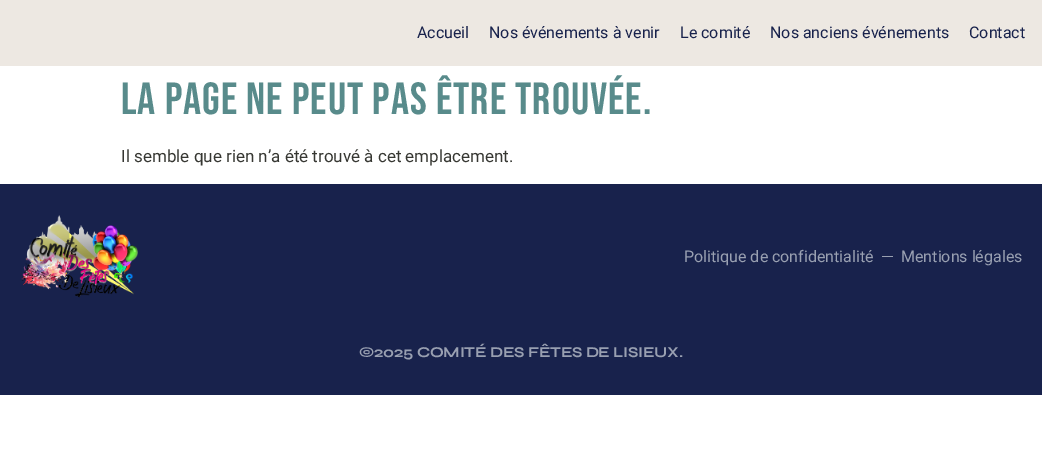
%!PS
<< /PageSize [1042 460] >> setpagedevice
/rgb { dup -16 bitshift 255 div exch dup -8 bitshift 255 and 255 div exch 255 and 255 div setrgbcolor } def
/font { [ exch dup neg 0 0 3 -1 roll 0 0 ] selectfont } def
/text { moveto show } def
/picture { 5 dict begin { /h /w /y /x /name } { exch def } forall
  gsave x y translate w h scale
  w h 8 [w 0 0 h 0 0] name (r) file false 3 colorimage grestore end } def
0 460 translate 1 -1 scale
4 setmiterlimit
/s1 { /Roboto-Regular 16 font 16#18224C rgb } def
/s2 { /Roboto-Regular 17 font 16#363732 rgb } def
/s3 { /Roboto-Regular 16 font 16#99A0B1 rgb } def
16#FFFFFF rgb
0 0 1042 460 rectfill
16#EDE8E2 rgb
0 0 1042 66 rectfill
s1
(Accueil) 417 38 text
(Nos événements à venir) 489 38 text
(Le comité) 680 38 text
(Nos anciens événements) 770 38 text
(Contact) 969 38 text
/BebasNeue-Regular 45 font
16#588B8B rgb
121 114 moveto 1 0 (La page ne peut pas être trouvée.) ashow
s2
(Il semble que rien n’a été trouvé à cet emplacement.) 121 162 text
16#18224C rgb
0 184 1042 211 rectfill
(pic1.raw) 21 215 117 83 picture
s3
(Politique de confidentialité) 684 262 text
882 256 11 1 rectfill
(Mentions légales) 901 262 text
/Syne-Bold 15 font
359 357 moveto -0.2 0 (©2025 COMITÉ DES FÊTES DE LISIEUX.) ashow
showpage
